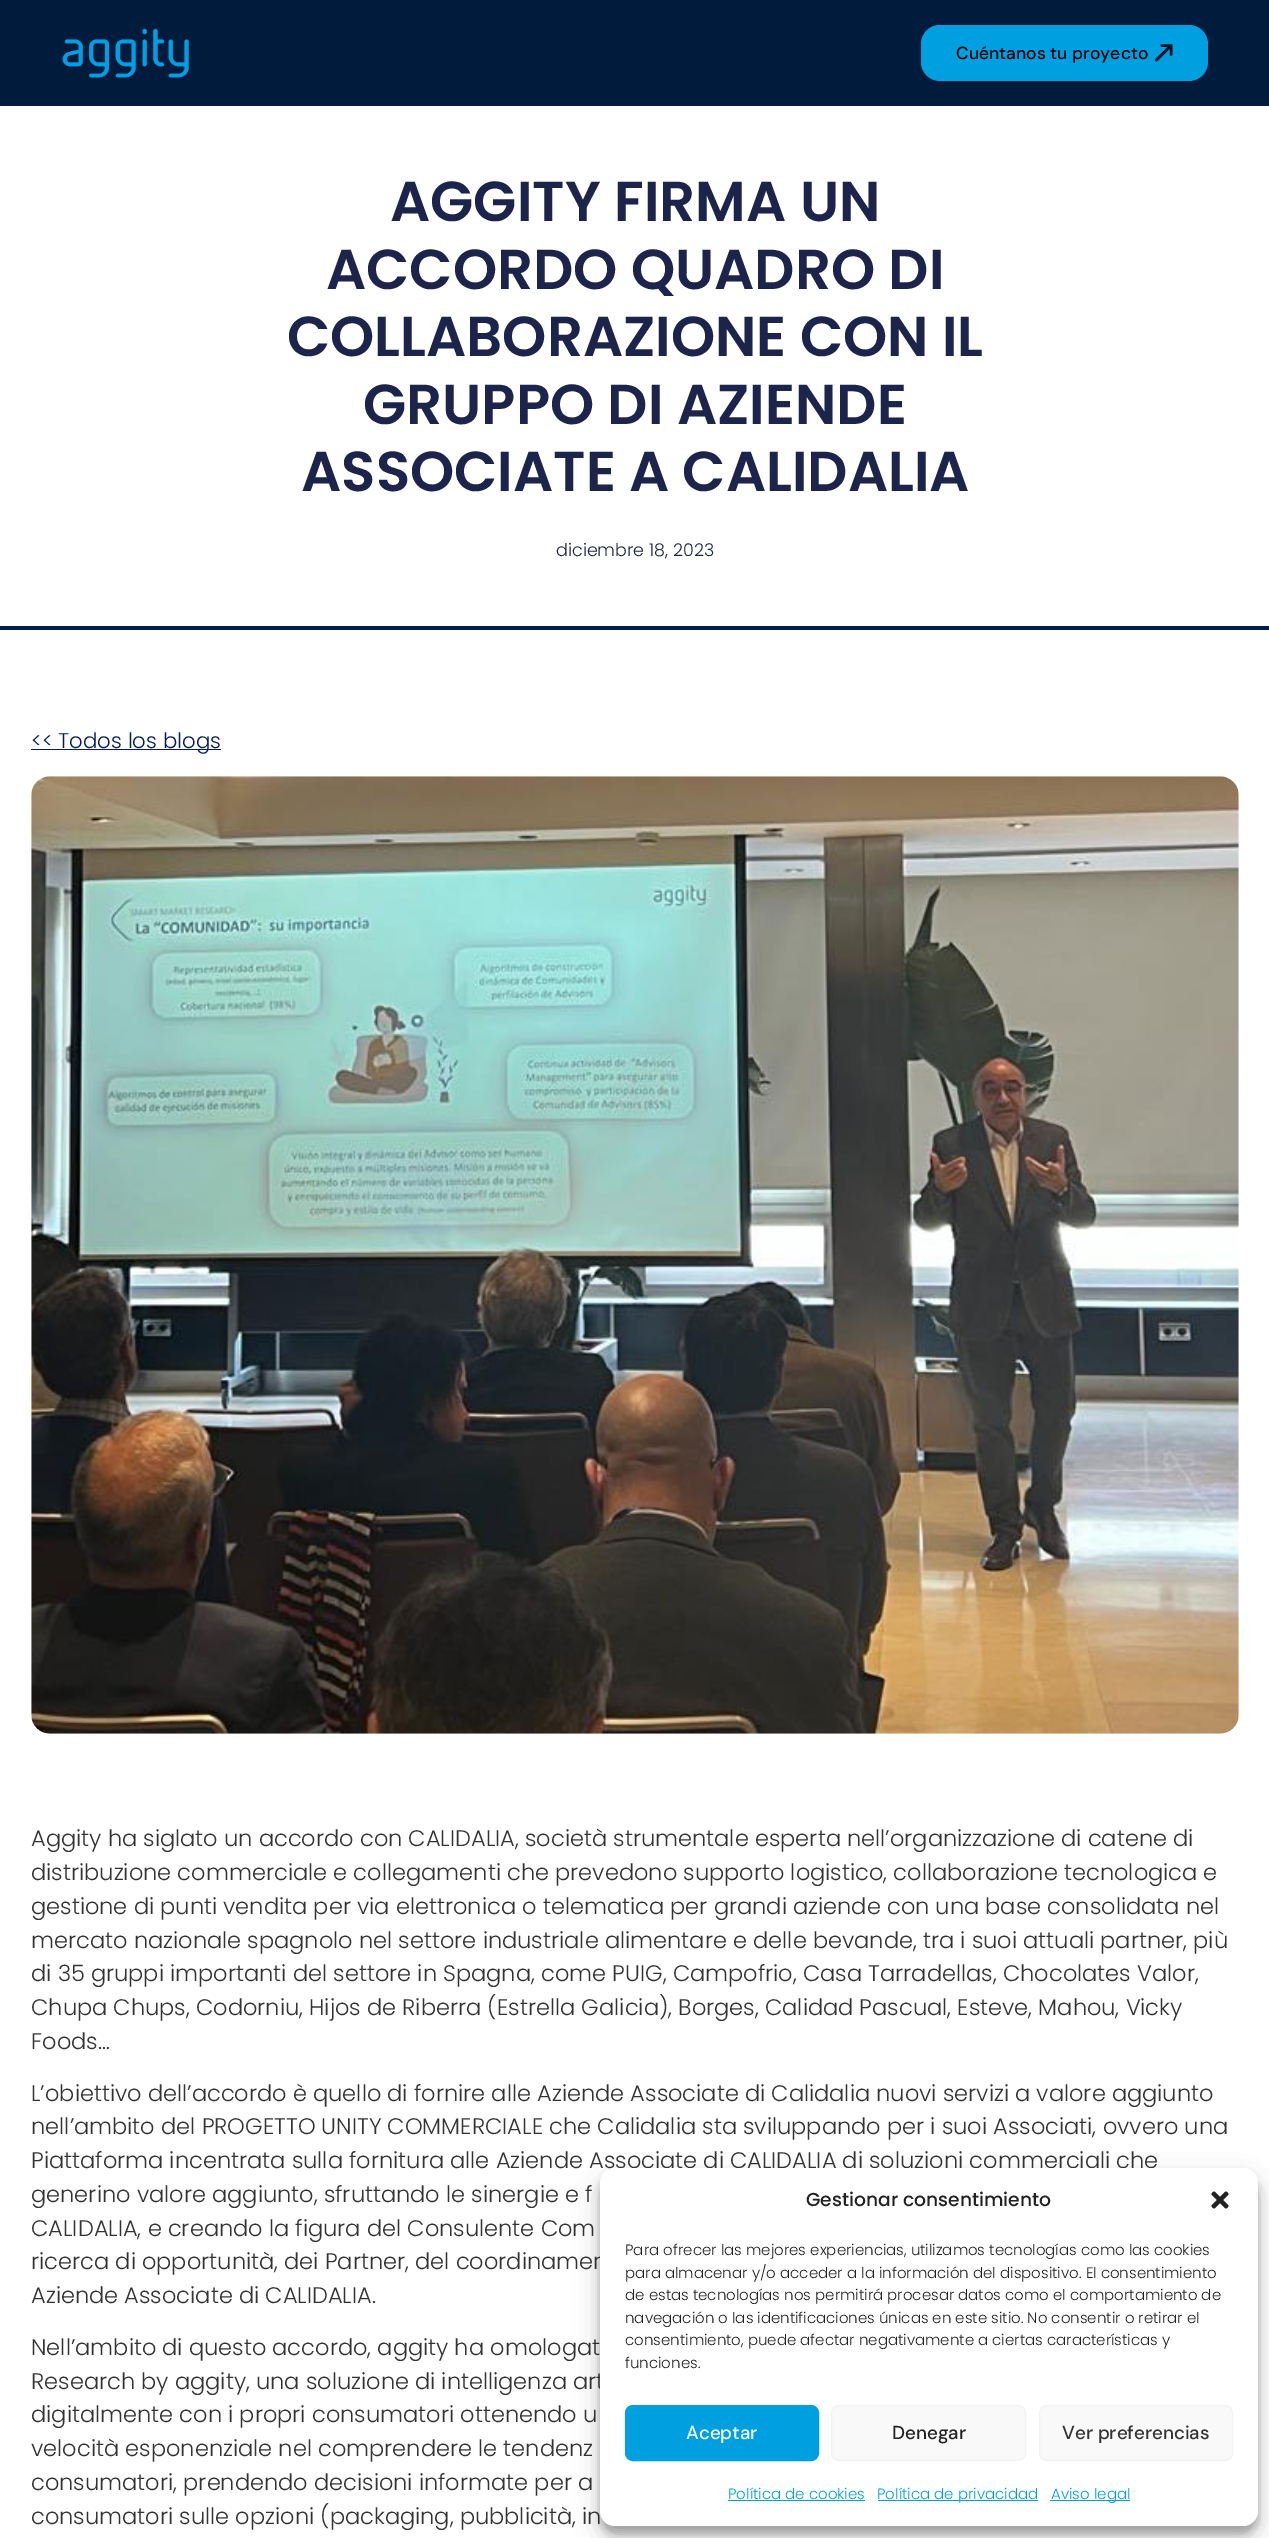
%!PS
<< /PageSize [1269 2538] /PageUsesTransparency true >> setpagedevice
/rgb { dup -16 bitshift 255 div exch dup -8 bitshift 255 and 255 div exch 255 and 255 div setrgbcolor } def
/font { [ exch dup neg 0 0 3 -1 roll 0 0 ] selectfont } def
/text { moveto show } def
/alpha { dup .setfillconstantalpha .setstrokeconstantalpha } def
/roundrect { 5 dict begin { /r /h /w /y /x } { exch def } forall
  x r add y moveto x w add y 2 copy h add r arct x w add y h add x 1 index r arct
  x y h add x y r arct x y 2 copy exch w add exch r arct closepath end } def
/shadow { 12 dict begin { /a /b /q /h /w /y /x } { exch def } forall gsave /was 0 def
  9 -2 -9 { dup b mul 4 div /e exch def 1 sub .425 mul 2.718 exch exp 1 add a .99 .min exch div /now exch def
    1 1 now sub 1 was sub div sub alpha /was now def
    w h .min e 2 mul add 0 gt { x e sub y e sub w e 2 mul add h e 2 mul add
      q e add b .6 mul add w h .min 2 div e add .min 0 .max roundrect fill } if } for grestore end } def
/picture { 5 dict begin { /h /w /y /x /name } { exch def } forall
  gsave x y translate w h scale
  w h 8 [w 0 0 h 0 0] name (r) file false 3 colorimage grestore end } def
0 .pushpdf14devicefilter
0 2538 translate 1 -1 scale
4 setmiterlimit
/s1 { /DMSans-Medium 17.5 font 16#000000 rgb } def
/s2 { /Poppins-SemiBold 56.25 font 16#1C244B rgb } def
/s3 { /Poppins-Light 17.5 font 16#1C244B rgb } def
/s4 { /Poppins-Light 21.25 font 16#051C57 rgb } def
/s5 { /Poppins-Light 22.5 font 16#333333 rgb } def
/s6 { /Poppins-Medium 18.75 font 16#222222 rgb } def
/s7 { /Poppins-Light 15 font 16#222222 rgb } def
/s8 { /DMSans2-Medium 18.75 font 16#FFFFFF rgb } def
/s9 { /DMSans2-Medium 18.75 font 16#222222 rgb } def
/s10 { /DMSans2-Medium 18.75 font 16#333333 rgb } def
/s11 { /Poppins-Light 15 font 16#009FDF rgb } def
16#FFFFFF rgb
0 0 1269 2538 rectfill
16#001B3C rgb
0 0 1269 106 rectfill
(pic1.raw) 62 28 127 50 picture
16#009FDF rgb
921 25 287 56 19 roundrect fill
s1
(Cuéntanos tu proyecto) 956 59 text
16#000F21 rgb
2.6 setlinewidth
1 setlinecap
1 setlinejoin
1171 45.5 moveto 1156.5 60 lineto 1171 45.5 moveto 1171 54.5 lineto 1171 45.5 moveto 1162 45.5 lineto stroke
16#051C57 rgb
0 626 1269 4 rectfill
s2
(AGGITY FIRMA UN) 390 221 text
(ACCORDO QUADRO DI) 326 289 text
(COLLABORAZIONE CON IL) 287 356 text
(GRUPPO DI AZIENDE) 363 424 text
(ASSOCIATE A CALIDALIA) 301 491 text
s3
(diciembre 18, 2023) 556 556 text
16#051C57 rgb
31 749 190 1 rectfill
s4
(<< Todos los blogs) 31 748 text
(pic2.raw) 31 776 1208 958 picture
s5
(Aggity ha siglato un accordo con CALIDALIA, società strumentale esperta nell’organizzazione di catene di) 31 1846 text
(distribuzione commerciale e collegamenti che prevedono supporto logistico, collaborazione tecnologica e) 31 1880 text
(gestione di punti vendita per via elettronica o telematica per grandi aziende con una base consolidata nel) 31 1914 text
(mercato nazionale spagnolo nel settore industriale alimentare e delle bevande, tra i suoi attuali partner, più) 31 1948 text
(di 35 gruppi importanti del settore in Spagna, come PUIG, Campofrio, Casa Tarradellas, Chocolates Valor,) 31 1981 text
(Chupa Chups, Codorniu, Hijos de Riberra \(Estrella Galicia\), Borges, Calidad Pascual, Esteve, Mahou, Vicky) 31 2015 text
(Foods…) 31 2049 text
(L’obiettivo dell’accordo è quello di fornire alle Aziende Associate di Calidalia nuovi servizi a valore aggiunto) 31 2101 text
(nell’ambito del PROGETTO UNITY COMMERCIALE che Calidalia sta sviluppando per i suoi Associati, ovvero una) 31 2134 text
(Piattaforma incentrata sulla fornitura alle Aziende Associate di CALIDALIA di soluzioni commerciali che) 31 2168 text
(generino valore aggiunto, sfruttando le sinergie e f) 31 2202 text
(CALIDALIA, e creando la figura del Consulente Com) 31 2236 text
(ricerca di opportunità, dei Partner, del coordinamen) 31 2269 text
(Aziende Associate di CALIDALIA.) 31 2303 text
(Nell’ambito di questo accordo, aggity ha omologat) 31 2355 text
(Research by aggity, una soluzione di intelligenza art) 31 2389 text
(digitalmente con i propri consumatori ottenendo u) 31 2422 text
(velocità esponenziale nel comprendere le tendenz) 31 2456 text
(consumatori, prendendo decisioni informate per a) 31 2490 text
(consumatori sulle opzioni \(packaging, pubblicità, in) 31 2524 text
16#000000 rgb
600 2175 658 359 15 4 0.23 shadow
600 2180 658 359 15 12.5 0.19 shadow
16#FFFFFF rgb
600 2168 658 358 15 roundrect fill
s6
(Gestionar consentimiento) 806 2206 text
(pic3.raw) 1211 2191 18 18 picture
s7
(Para ofrecer las mejores experiencias, utilizamos tecnologías como las cookies) 625 2255 text
(para almacenar y/o acceder a la información del dispositivo. El consentimiento) 625 2278 text
(de estas tecnologías nos permitirá procesar datos como el comportamiento de) 625 2300 text
(navegación o las identificaciones únicas en este sitio. No consentir o retirar el) 625 2323 text
(consentimiento, puede afectar negativamente a ciertas características y) 625 2345 text
(funciones.) 625 2368 text
16#009FDF rgb
625.5 2405.5 193 55 7.5 roundrect gsave fill grestore
1 setlinewidth
0 setlinecap
0 setlinejoin
stroke
s8
(Aceptar) 686 2439 text
16#F9F9F9 rgb
831.5 2405.5 194 55 7.5 roundrect gsave fill grestore
16#F2F2F2 rgb
stroke
s9
(Denegar) 892 2439 text
16#F9F9F9 rgb
1039.5 2405.5 193 55 7.5 roundrect gsave fill grestore
16#F2F2F2 rgb
stroke
s10
(Ver preferencias) 1062 2439 text
s11
(Política de cookies) 728 2499 text
728 2500 137 1 rectfill
878 2500 160 1 rectfill
(Política de privacidad) 877 2499 text
1050 2500 80 1 rectfill
(Aviso legal) 1051 2499 text
.poppdf14devicefilter showpage
